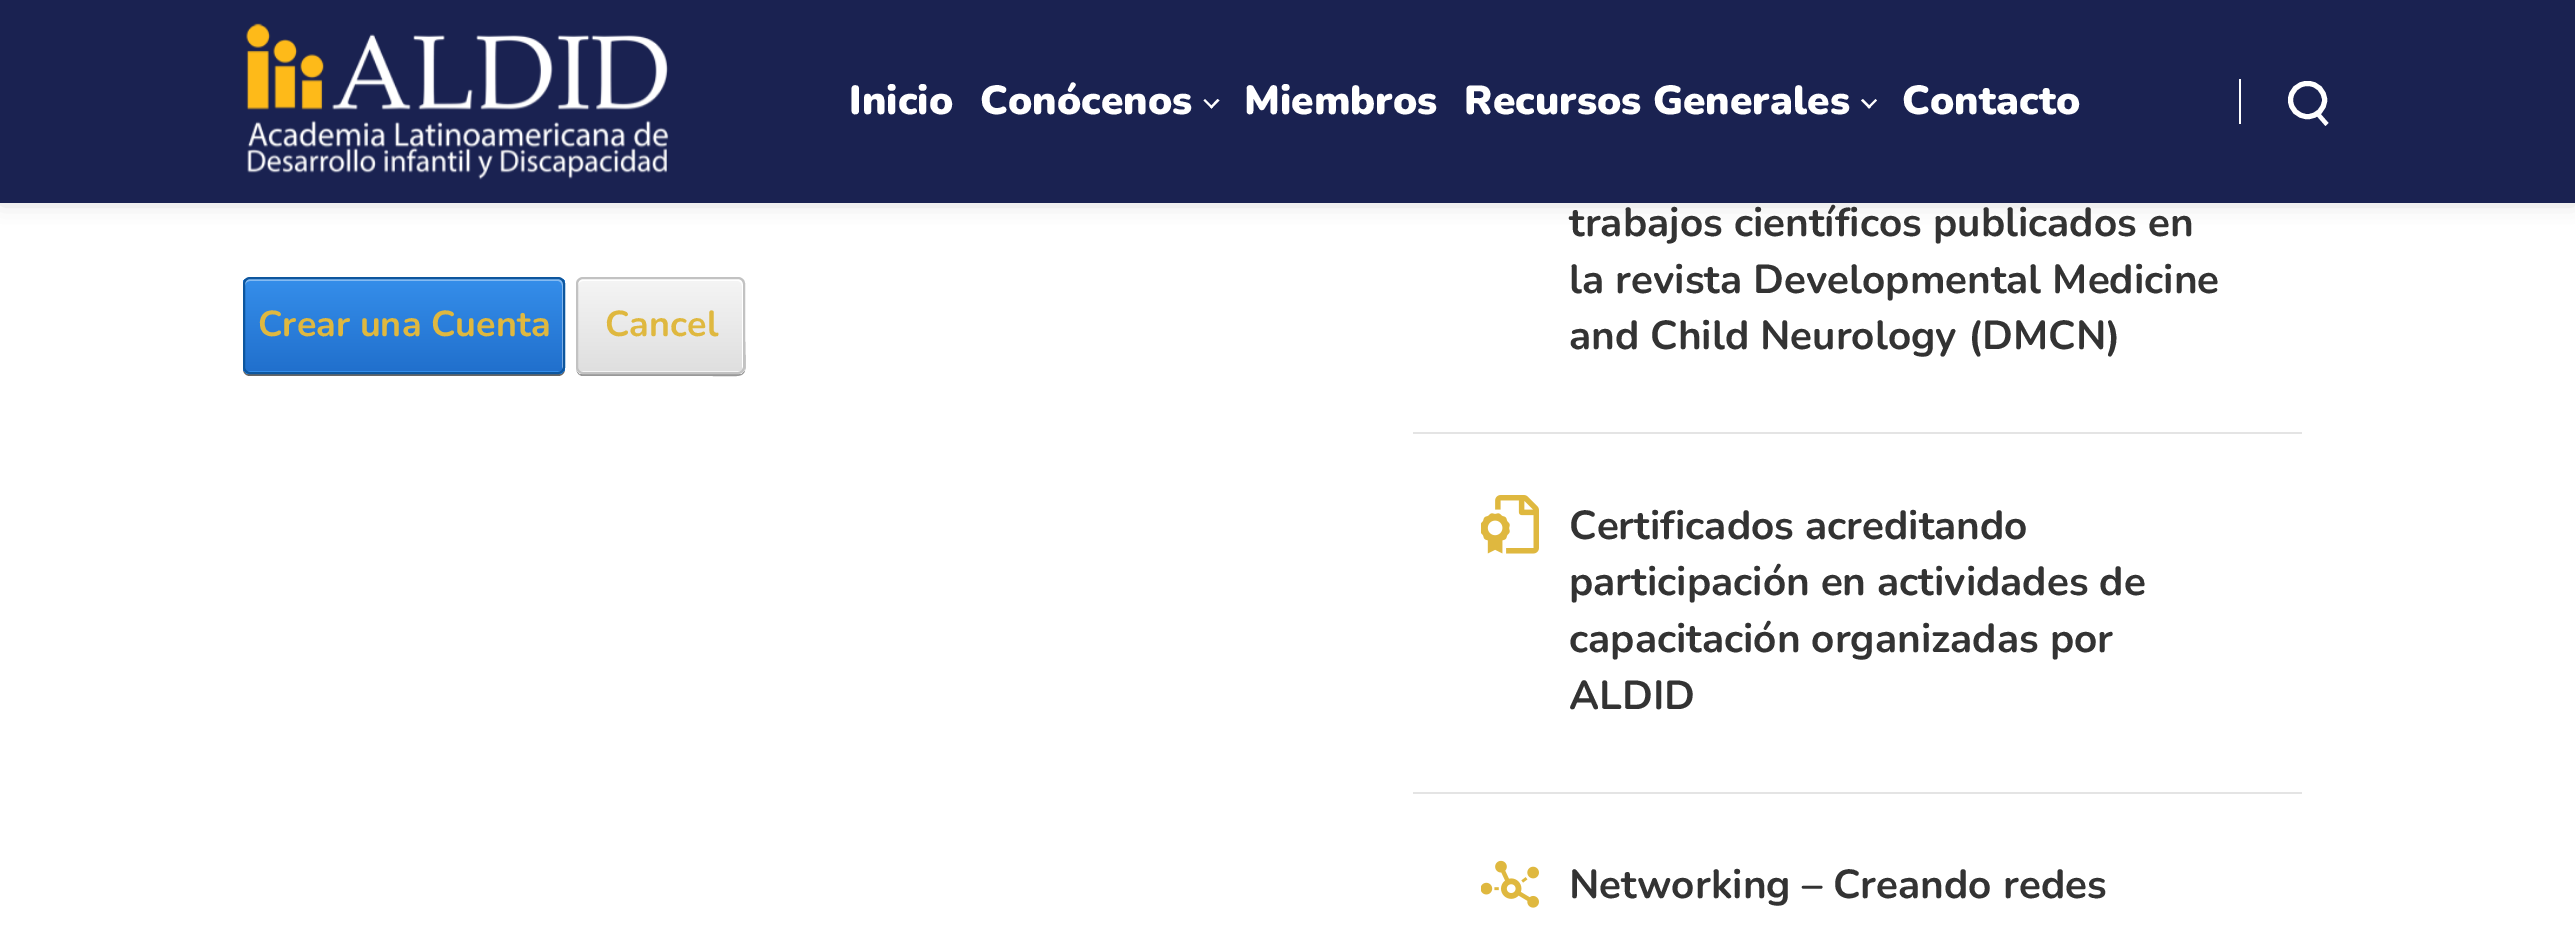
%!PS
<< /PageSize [2575 945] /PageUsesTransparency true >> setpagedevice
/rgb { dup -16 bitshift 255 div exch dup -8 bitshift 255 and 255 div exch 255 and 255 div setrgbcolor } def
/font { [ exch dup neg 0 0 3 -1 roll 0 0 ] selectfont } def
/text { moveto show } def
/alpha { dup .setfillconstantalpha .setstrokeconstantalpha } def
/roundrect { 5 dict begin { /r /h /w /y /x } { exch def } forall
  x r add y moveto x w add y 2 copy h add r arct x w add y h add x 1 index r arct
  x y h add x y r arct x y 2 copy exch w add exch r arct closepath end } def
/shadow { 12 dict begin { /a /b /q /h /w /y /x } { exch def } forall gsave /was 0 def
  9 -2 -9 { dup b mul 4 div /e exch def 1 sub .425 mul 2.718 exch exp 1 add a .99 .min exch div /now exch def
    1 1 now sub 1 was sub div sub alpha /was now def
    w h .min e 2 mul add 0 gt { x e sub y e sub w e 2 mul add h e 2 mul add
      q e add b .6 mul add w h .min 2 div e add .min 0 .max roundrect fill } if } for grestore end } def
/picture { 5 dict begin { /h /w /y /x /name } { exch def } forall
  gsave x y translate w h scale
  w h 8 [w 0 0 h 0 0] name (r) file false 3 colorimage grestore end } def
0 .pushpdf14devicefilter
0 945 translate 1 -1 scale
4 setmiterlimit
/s1 { /Nunito-Black 40.5 font 16#FFFFFF rgb } def
/s2 { /Nunito-Bold 36 font 16#DFB83F rgb } def
/s3 { /Nunito-Bold 40.5 font 16#333333 rgb } def
16#FFFFFF rgb
0 0 2575 945 rectfill
16#000000 rgb
2 47 2572 153 0 11 0.2 shadow
16#1A2251 rgb
0 0 2575 203 rectfill
(pic1.raw) 246 23 423 157 picture
s1
(Inicio) 849 114 text
(Conócenos) 980 114 text
1217.5 99 moveto 1219.5 100.5 lineto 1211.5 108.5 lineto 1210 107 lineto closepath fill
1205 99 moveto 1213 107 lineto 1211.5 108.5 lineto 1203.5 100.5 lineto closepath fill
(Miembros) 1244 114 text
(Recursos Generales) 1464 114 text
1875.5 99 moveto 1877 100.5 lineto 1869 108.5 lineto 1867.5 107 lineto closepath fill
1863 99 moveto 1871 107 lineto 1869 108.5 lineto 1861 100.5 lineto closepath fill
(Contacto) 1902 114 text
2239 79 2 45 rectfill
2318 111 moveto 2328.5 123 lineto 2325.5 126 lineto 2315 114 lineto closepath fill
5 setlinewidth
2290.5 83.5 34 33 16.5 roundrect stroke
16#666666 rgb
243 367 moveto 243 369 lineto 243 373 246 376 250 376 curveto 558 376 lineto 562 376 565 373 565 369 curveto 565 284 lineto 565 367 lineto 565 370 562 374 558 374 curveto 250 374 lineto 246 374 243 370 243 367 curveto closepath fill
gsave
243 277 322 97 7 roundrect clip newpath
gsave 243 279 moveto 565 279 lineto 565 371 lineto 243 371 lineto closepath clip newpath
<< /ShadingType 2 /ColorSpace /DeviceRGB /Coords [404 279 404 371] /Extend [true true] /Function << /FunctionType 2 /Domain [0 1] /C0 [0.208 0.557 0.918] /C1 [0.129 0.439 0.804] /N 1 >> >> shfill grestore
gsave 243 371 moveto 565 371 lineto 565 374 lineto 243 374 lineto closepath clip newpath
<< /ShadingType 2 /ColorSpace /DeviceRGB /Coords [404 371 404 464] /Extend [true true] /Function << /FunctionType 2 /Domain [0 1] /C0 [0.208 0.557 0.918] /C1 [0.129 0.439 0.804] /N 1 >> >> shfill grestore
grestore
0.4 alpha
16#FFFFFF rgb
250 281 moveto 558 281 lineto 560 281 562 283 562 286 curveto 562 369 lineto 563 368 563 367 563 366 curveto 563 284 lineto 563 281 561 279 558 279 curveto 250 279 lineto 247 279 245 281 245 284 curveto 245 286 lineto 245 283 247 281 250 281 curveto closepath fill
1 alpha
16#0D569E rgb
2 setlinewidth
244 278 320 95 6 roundrect stroke
s2
(Crear una Cuenta) 258 336 text
16#999999 rgb
576 367 moveto 576 371 578 376 583 376 curveto 712 376 lineto 752 376 745 381 745 341 curveto 745 284 lineto 745 367 lineto 745 370 742 374 738 374 curveto 583 374 lineto 579 374 576 370 576 367 curveto closepath fill
gsave
576 277 169 97 7 roundrect clip newpath
gsave 576 279 moveto 745 279 lineto 745 371 lineto 576 371 lineto closepath clip newpath
<< /ShadingType 2 /ColorSpace /DeviceRGB /Coords [660 279 660 371] /Extend [true true] /Function << /FunctionType 2 /Domain [0 1] /C0 [0.961 0.961 0.961] /C1 [0.875 0.875 0.875] /N 1 >> >> shfill grestore
gsave 576 371 moveto 745 371 lineto 745 374 lineto 576 374 lineto closepath clip newpath
<< /ShadingType 2 /ColorSpace /DeviceRGB /Coords [660 371 660 464] /Extend [true true] /Function << /FunctionType 2 /Domain [0 1] /C0 [0.961 0.961 0.961] /C1 [0.875 0.875 0.875] /N 1 >> >> shfill grestore
grestore
16#FFFFFF rgb
583 281 moveto 738 281 lineto 740 281 742 283 742 286 curveto 742 369 lineto 743 368 743 367 743 366 curveto 743 284 lineto 743 281 741 279 738 279 curveto 583 279 lineto 580 279 578 281 578 284 curveto 578 286 lineto 578 283 580 281 583 281 curveto closepath fill
16#C2C2C2 rgb
577 278 167 95 6 roundrect stroke
s2
(Cancel) 605 336 text
16#E4E4E4 rgb
1413 432 889 2 rectfill
s3
(trabajos científicos publicados en) 1569 236 text
(la revista Developmental Medicine) 1569 293 text
(and Child Neurology \(DMCN\)) 1569 349 text
16#E4E4E4 rgb
1413 792 889 2 rectfill
(pic2.raw) 1481 495 58 59 picture
s3
(Certificados acreditando) 1569 539 text
(participación en actividades de) 1569 595 text
(capacitación organizadas por) 1569 652 text
(ALDID) 1569 709 text
(pic3.raw) 1481 860 58 48 picture
(Networking – Creando redes) 1569 898 text
.poppdf14devicefilter showpage
